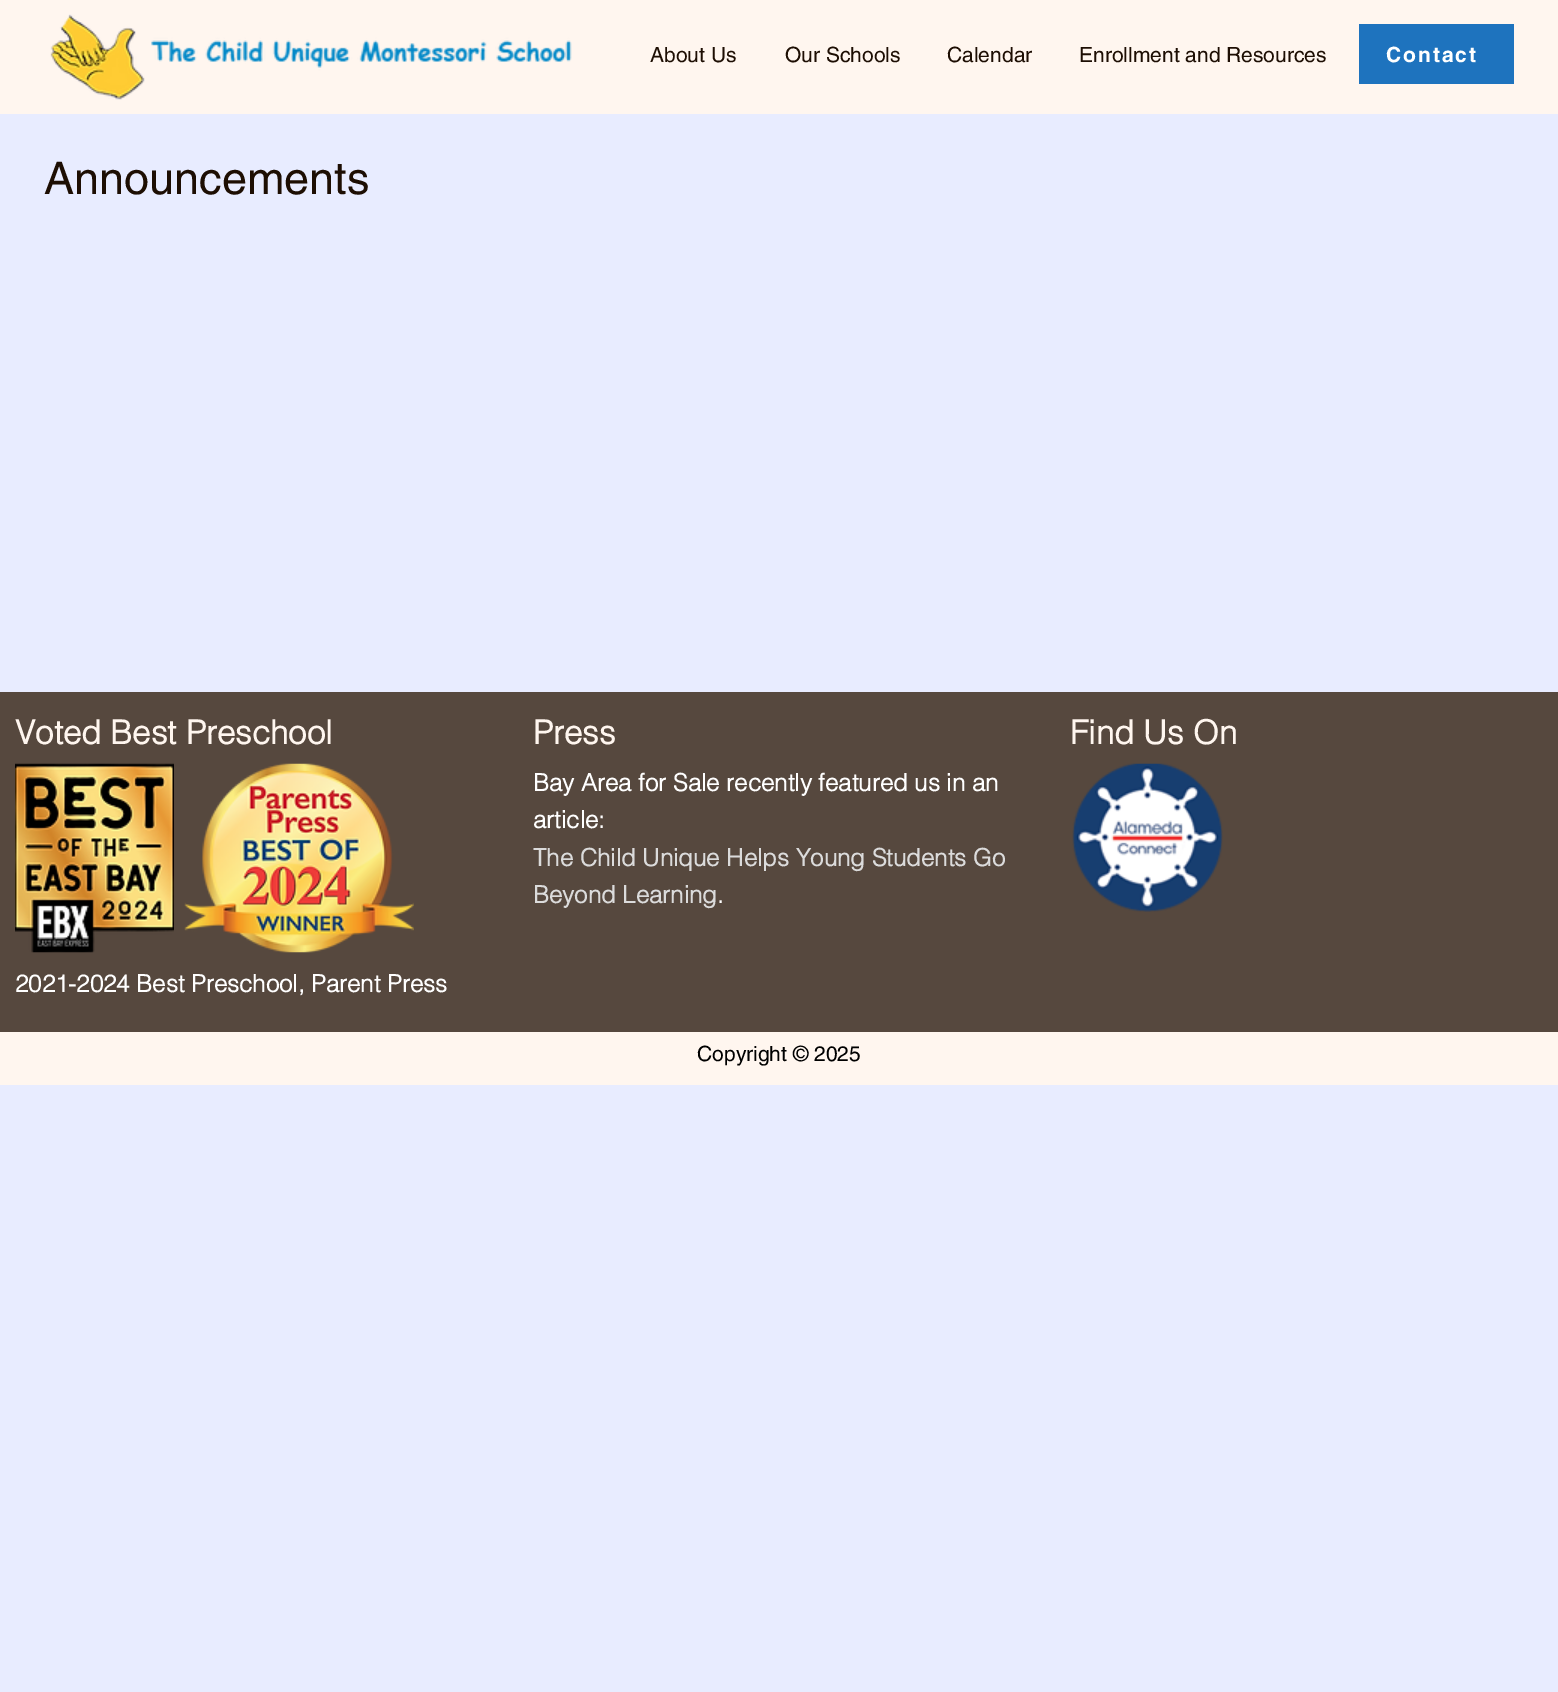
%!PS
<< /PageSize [1558 1692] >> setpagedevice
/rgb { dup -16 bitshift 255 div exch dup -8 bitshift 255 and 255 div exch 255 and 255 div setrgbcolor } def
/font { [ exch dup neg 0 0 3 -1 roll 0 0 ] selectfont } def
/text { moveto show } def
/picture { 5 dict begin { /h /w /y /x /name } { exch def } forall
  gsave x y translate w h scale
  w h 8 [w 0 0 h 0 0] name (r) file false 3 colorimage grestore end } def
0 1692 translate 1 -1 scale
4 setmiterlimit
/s1 { /helvetica-Regular 21 font 16#1D0E03 rgb } def
/s2 { /helvetica-Regular 45 font 16#1D0E03 rgb } def
/s3 { /helvetica-Bold 33 font 16#FFF6EF rgb } def
/s4 { /helvetica-Bold 24 font 16#FFFFFF rgb } def
/s5 { /helvetica-Bold 24 font 16#DBDBDB rgb } def
/s6 { /helvetica-Regular 21 font 16#000000 rgb } def
16#E8ECFF rgb
0 0 1558 1692 rectfill
16#FFF6EF rgb
0 0 1558 114 rectfill
(pic1.raw) 50 14 522 86 picture
s1
(About Us) 650 62 text
(Our Schools) 785 62 text
(Calendar) 947 62 text
(Enrollment and Resources) 1079 62 text
16#1E73BE rgb
1359 24 155 60 rectfill
/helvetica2-Bold 21 font
16#FFFFFF rgb
1386 62 moveto 2 0 (Contact) ashow
s2
(Announcements) 44 194 text
16#56483E rgb
0 692 1558 340 rectfill
s3
(Voted Best Preschool) 15 744 text
(pic2.raw) 15 763 159 190 picture
(pic3.raw) 184 763 230 190 picture
s4
(2021-2024 Best Preschool, Parent Press) 15 992 text
s3
(Press) 533 744 text
s4
(Bay Area for Sale recently featured us in an) 533 791 text
(article:) 533 828 text
s5
(The Child Unique Helps Young Students Go) 533 866 text
(Beyond Learning) 533 903 text
s4
(.) 717 903 text
s3
(Find Us On) 1070 744 text
(pic4.raw) 1072 763 151 149 picture
0 1032 1558 53 rectfill
s6
(Copyright © 2025) 697 1061 text
showpage
